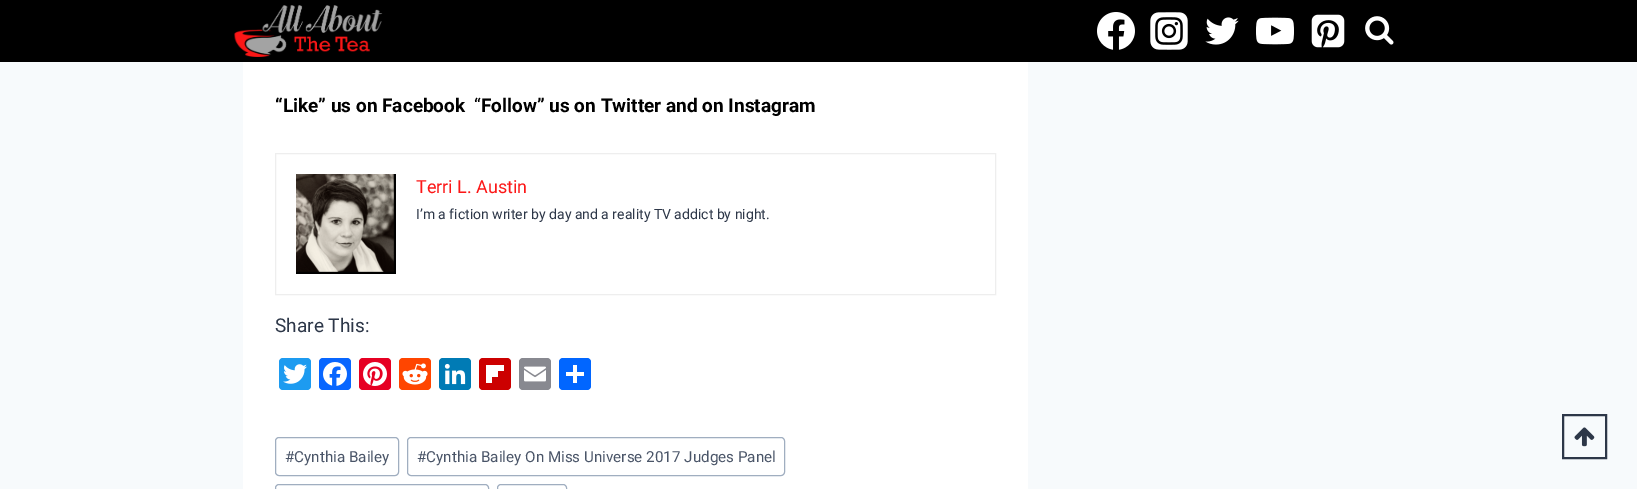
%!PS
<< /PageSize [1637 489] >> setpagedevice
/rgb { dup -16 bitshift 255 div exch dup -8 bitshift 255 and 255 div exch 255 and 255 div setrgbcolor } def
/font { [ exch dup neg 0 0 3 -1 roll 0 0 ] selectfont } def
/text { moveto show } def
/roundrect { 5 dict begin { /r /h /w /y /x } { exch def } forall
  x r add y moveto x w add y 2 copy h add r arct x w add y h add x 1 index r arct
  x y h add x y r arct x y 2 copy exch w add exch r arct closepath end } def
/picture { 5 dict begin { /h /w /y /x /name } { exch def } forall
  gsave x y translate w h scale
  w h 8 [w 0 0 h 0 0] name (r) file false 3 colorimage grestore end } def
0 489 translate 1 -1 scale
4 setmiterlimit
/s1 { /Roboto-Bold 19 font 16#000000 rgb } def
/s2 { /Roboto-Regular 19 font 16#000000 rgb } def
/s3 { /Roboto-Regular 18 font 16#FC1717 rgb } def
/s4 { /Roboto-Regular 14 font 16#2D3748 rgb } def
/s5 { /Roboto-Regular 19 font 16#2D3748 rgb } def
/s6 { /Roboto-Regular 15.2 font 16#4A5568 rgb } def
16#F7FAFC rgb
0 0 1637 489 rectfill
16#000000 rgb
0 0 1637 62 rectfill
(pic1.raw) 234 5 149 52 picture
(pic2.raw) 1097 12 38 38 picture
(pic3.raw) 1150 12 38 38 picture
(pic4.raw) 1205 17 34 28 picture
(pic5.raw) 1256 17 38 28 picture
(pic6.raw) 1311 14 34 34 picture
(pic7.raw) 1365 16 29 29 picture
16#FFFFFF rgb
243 62 785 427 rectfill
s1
(“Like” us on Facebook) 275 112 text
s2
(“) 474 112 text
s1
(Follow” us on Twitter and on Instagram) 481 112 text
16#EEEEEE rgb
275.5 153.5 720 141 rectstroke
(pic8.raw) 296 174 100 100 picture
s3
(Terri L. Austin) 416 193 text
s4
(I’m a fiction writer by day and a reality TV addict by night.) 416 219 text
s5
(Share This:) 275 332 text
16#1D9BF0 rgb
279 358 32 32 4 roundrect fill
(pic9.raw) 283 364 24 20 picture
16#0866FF rgb
319 358 32 32 4 roundrect fill
(pic10.raw) 323 362 24 24 picture
16#E60023 rgb
359 358 32 32 4 roundrect fill
(pic11.raw) 363 362 24 24 picture
16#FF4500 rgb
399 358 32 32 4 roundrect fill
(pic12.raw) 402 363 26 22 picture
16#007BB5 rgb
439 358 32 32 4 roundrect fill
(pic13.raw) 444 363 22 22 picture
16#CC0000 rgb
479 358 32 32 4 roundrect fill
16#FFFFFF rgb
492 371 6 6 rectfill
486 365 18 6 rectfill
486 365 6 18 rectfill
16#888990 rgb
519 358 32 32 4 roundrect fill
(pic14.raw) 524 366 22 16 picture
16#0166FF rgb
559 358 32 32 4 roundrect fill
16#FFFFFF rgb
573 365 4 18 rectfill
566 372 18 4 rectfill
16#A0AEC0 rgb
275.5 437.5 123 38 3.5 roundrect stroke
s6
(#Cynthia Bailey) 285 462 text
16#A0AEC0 rgb
407.5 437.5 377 38 3.5 roundrect stroke
s6
(#Cynthia Bailey On Miss Universe 2017 Judges Panel) 417 462 text
16#A0AEC0 rgb
275.5 484.5 213 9 3.5 roundrect stroke
497.5 484.5 69 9 3.5 roundrect stroke
16#2D3748 rgb
2 setlinewidth
1563 415 43 43 rectstroke
(pic15.raw) 1574 427 21 20 picture
showpage
